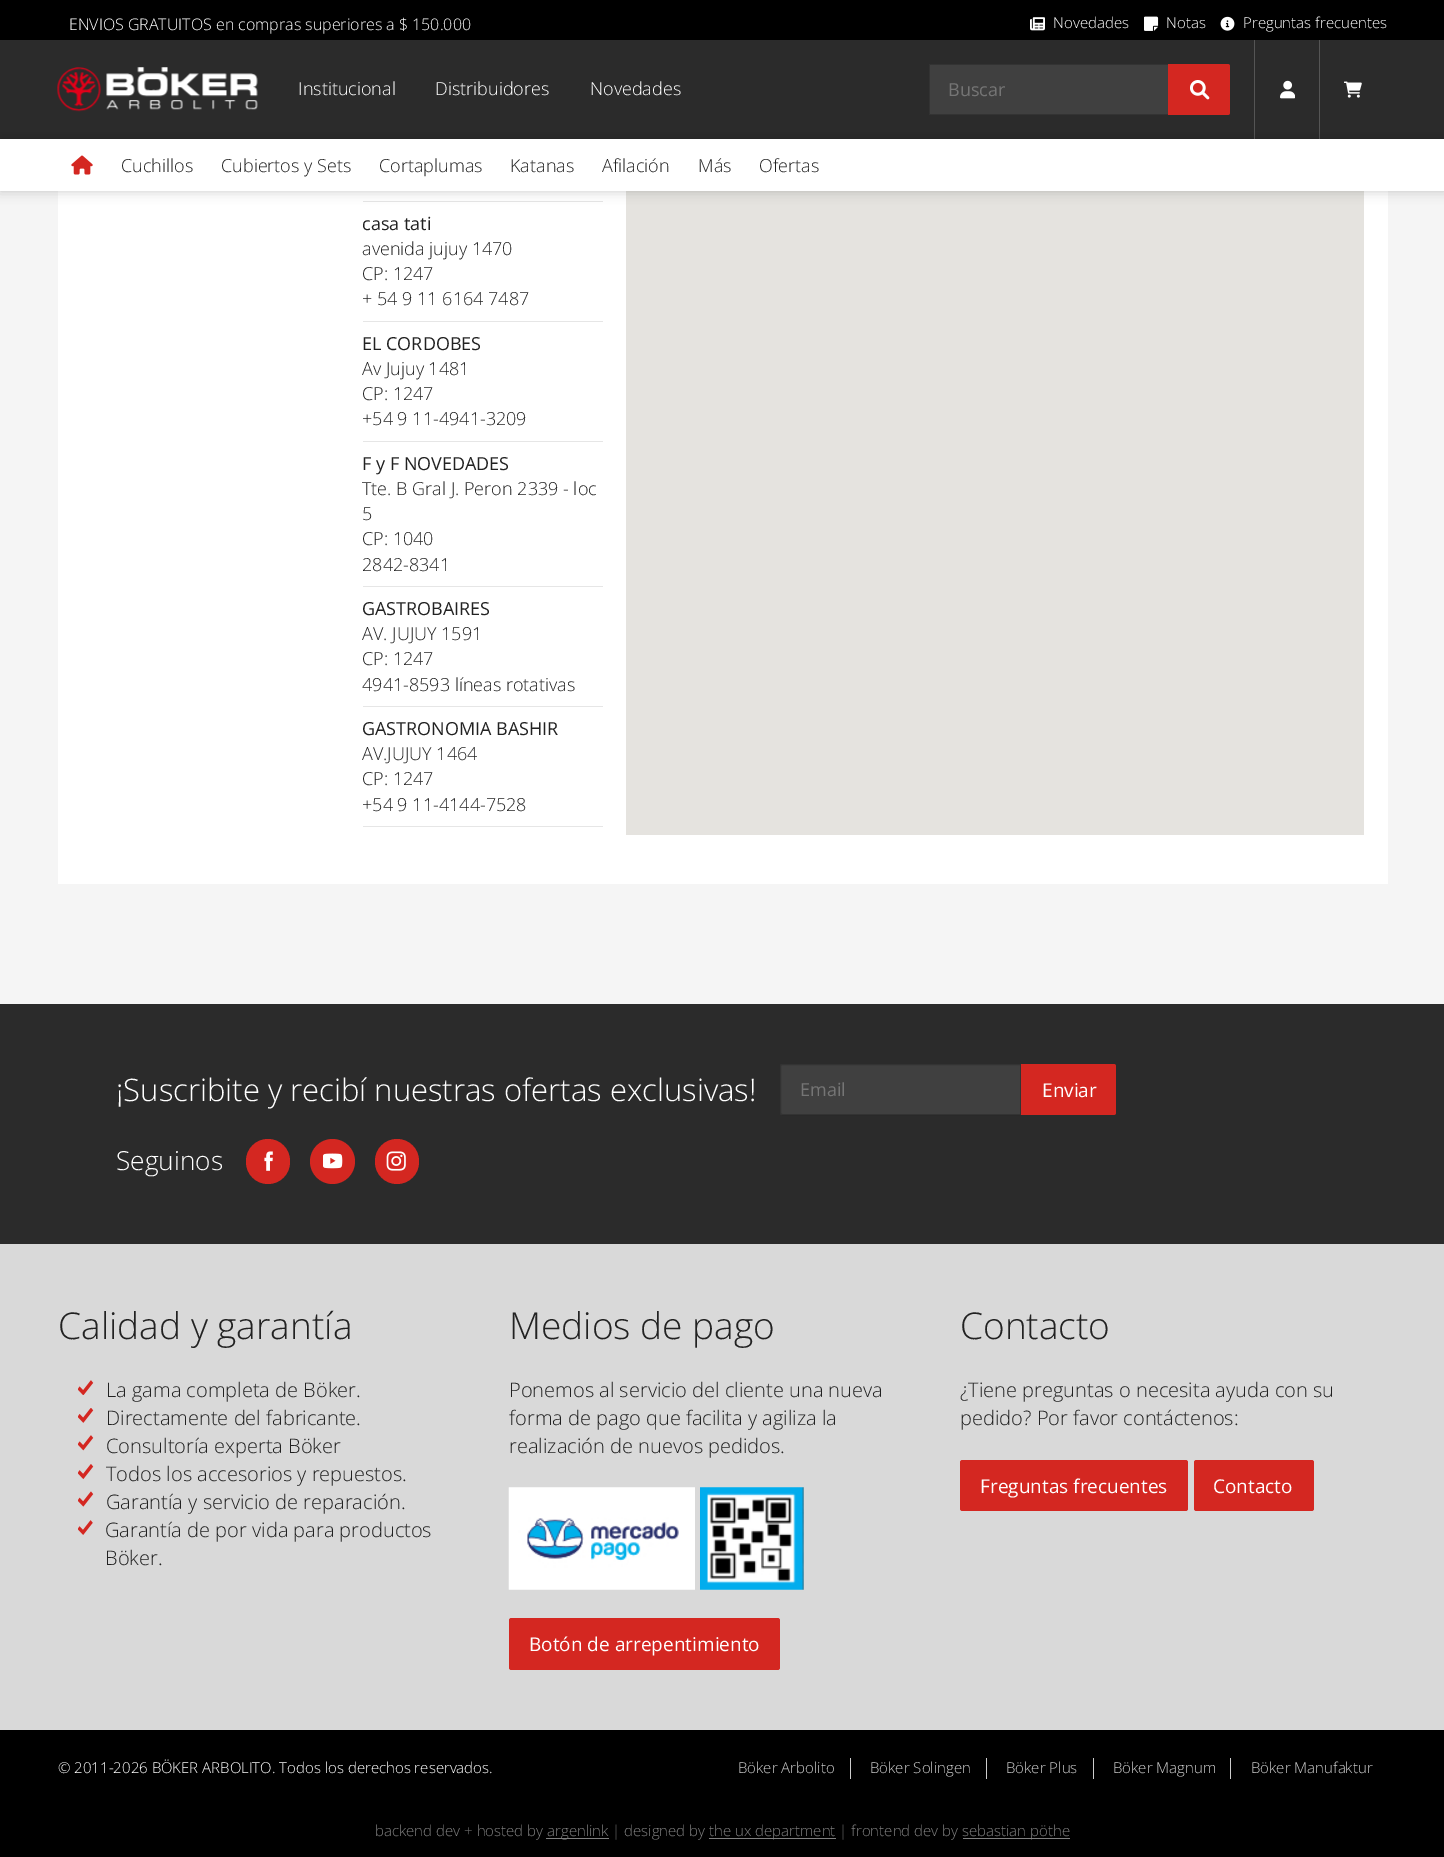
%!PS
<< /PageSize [1444 1857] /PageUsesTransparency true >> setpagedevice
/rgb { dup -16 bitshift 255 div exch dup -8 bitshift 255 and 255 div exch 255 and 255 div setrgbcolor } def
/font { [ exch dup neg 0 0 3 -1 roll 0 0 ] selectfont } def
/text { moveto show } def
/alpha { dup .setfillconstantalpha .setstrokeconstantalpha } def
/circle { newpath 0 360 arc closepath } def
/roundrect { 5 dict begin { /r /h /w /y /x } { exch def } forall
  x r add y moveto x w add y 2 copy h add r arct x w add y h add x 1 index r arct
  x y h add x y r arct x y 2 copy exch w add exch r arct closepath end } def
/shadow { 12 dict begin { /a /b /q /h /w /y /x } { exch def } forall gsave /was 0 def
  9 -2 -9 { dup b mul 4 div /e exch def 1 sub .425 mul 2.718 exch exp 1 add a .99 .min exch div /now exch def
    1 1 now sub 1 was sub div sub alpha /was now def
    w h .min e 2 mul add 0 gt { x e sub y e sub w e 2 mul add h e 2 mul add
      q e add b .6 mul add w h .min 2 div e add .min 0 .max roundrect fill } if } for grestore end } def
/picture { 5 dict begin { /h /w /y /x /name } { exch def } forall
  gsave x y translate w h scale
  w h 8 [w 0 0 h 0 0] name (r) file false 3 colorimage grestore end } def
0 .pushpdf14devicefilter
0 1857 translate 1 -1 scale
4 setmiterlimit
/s1 { /OpenSans-Light 16 font 16#FFFFFF rgb } def
/s2 { /OpenSans-Light 15 font 16#FFFFFF rgb } def
/s3 { /OpenSans-Light 18 font 16#FFFFFF rgb } def
/s4 { /OpenSans-Regular 18 font 16#757575 rgb } def
/s5 { /OpenSans-Light 18 font 16#222222 rgb } def
/s6 { /OpenSans-Regular 18 font 16#222222 rgb } def
/s7 { /OpenSans-Light 31 font 16#FFFFFF rgb } def
/s8 { /OpenSans-Regular 19 font 16#FFFFFF rgb } def
/s9 { /OpenSans-Light 26.25 font 16#FFFFFF rgb } def
/s10 { /OpenSans-Light 37 font 16#222222 rgb } def
/s11 { /OpenSans-Light 20 font 16#222222 rgb } def
/s12 { /OpenSans-Light 15 font 16#CCCCCC rgb } def
/s13 { /OpenSans-Light 15 font 16#808080 rgb } def
16#F5F5F5 rgb
0 0 1444 1857 rectfill
16#000000 rgb
0 0 1444 40 rectfill
s1
(ENVIOS GRATUITOS en compras superiores a $ 150.000) 69 30 text
(pic1.raw) 1030 17 15 14 picture
s2
(Novedades) 1053 28 text
(pic2.raw) 1144 16 15 15 picture
(Notas) 1166 28 text
(pic3.raw) 1220 16 15 15 picture
(Preguntas frecuentes) 1243 28 text
16#2B2B2B rgb
0 40 1444 99 rectfill
(pic4.raw) 57 67 201 45 picture
s3
(Institucional) 298 95 text
(Distribuidores) 435 95 text
(Novedades) 590 95 text
16#555555 rgb
1254 40 1 99 rectfill
16#404040 rgb
931.5 64 moveto 1168 64 lineto 1168 115 lineto 931.5 115 lineto 930 115 929 114 929 112.5 curveto 929 66.5 lineto 929 65 930 64 931.5 64 curveto closepath fill
0.2 alpha
16#000000 rgb
930 64 238 1 rectfill
930 114 238 1 rectfill
929 65 1 49 rectfill
1 alpha
s4
(Buscar) 948 96 text
16#D42721 rgb
1168 64 moveto 1227.5 64 lineto 1229 64 1230 65 1230 66.5 curveto 1230 112.5 lineto 1230 114 1229 115 1227.5 115 curveto 1168 115 lineto closepath fill
(pic5.raw) 1190 80 20 20 picture
16#555555 rgb
1319 40 1 99 rectfill
(pic6.raw) 1280 80 15 19 picture
(pic7.raw) 1344 81 18 17 picture
16#FFFFFF rgb
58 191 1330 693 rectfill
16#E6E6E6 rgb
363 201 240 1 rectfill
16#E5E3DF rgb
626 191 738 644 rectfill
16#000000 rgb
0 139 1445 52 0 6 0.2 shadow
16#FFFFFF rgb
0 139 1444 52 rectfill
(pic8.raw) 71 155 22 20 picture
s5
(Cuchillos) 121 172 text
(Cubiertos y Sets) 221 172 text
(Cortaplumas) 379 172 text
(Katanas) 510 172 text
(Afilación) 602 172 text
(Más) 698 172 text
(Ofertas) 759 172 text
s6
(casa tati) 362 230 text
s5
(avenida jujuy 1470) 362 255 text
(CP: 1247) 362 280 text
(+ 54 9 11 6164 7487) 362 305 text
16#E6E6E6 rgb
363 321 240 1 rectfill
s6
(EL CORDOBES) 362 350 text
s5
(Av Jujuy 1481) 362 375 text
(CP: 1247) 362 400 text
(+54 9 11-4941-3209) 362 425 text
16#E6E6E6 rgb
363 441 240 1 rectfill
s6
(F y F NOVEDADES) 362 470 text
s5
(Tte. B Gral J. Peron 2339 - loc) 362 495 text
(5) 362 520 text
(CP: 1040) 362 545 text
(2842-8341) 362 571 text
16#E6E6E6 rgb
363 586 240 1 rectfill
s6
(GASTROBAIRES) 362 615 text
s5
(AV. JUJUY 1591) 362 640 text
(CP: 1247) 362 665 text
(4941-8593 líneas rotativas) 362 691 text
16#E6E6E6 rgb
363 706 240 1 rectfill
s6
(GASTRONOMIA BASHIR) 362 735 text
s5
(AV.JUJUY 1464) 362 760 text
(CP: 1247) 362 785 text
(+54 9 11-4144-7528) 362 811 text
16#E6E6E6 rgb
363 826 240 1 rectfill
16#2B2B2B rgb
0 1004 1444 240 rectfill
s7
(¡Suscribite y recibí nuestras ofertas exclusivas!) 116 1101 text
16#404040 rgb
782.5 1064 moveto 1021 1064 lineto 1021 1115 lineto 782.5 1115 lineto 781 1115 780 1114 780 1112.5 curveto 780 1066.5 lineto 780 1065 781 1064 782.5 1064 curveto closepath fill
0.2 alpha
16#000000 rgb
782.5 1064.5 moveto 1020.5 1064.5 lineto 1020.5 1114.5 lineto 782.5 1114.5 lineto 781.5 1114.5 780.5 1113.5 780.5 1112.5 curveto 780.5 1066.5 lineto 780.5 1065.5 781.5 1064.5 782.5 1064.5 curveto closepath stroke
1 alpha
s4
(Email) 800 1096 text
16#D42721 rgb
1021 1064 moveto 1113.5 1064 lineto 1115 1064 1116 1065 1116 1066.5 curveto 1116 1112.5 lineto 1116 1114 1115 1115 1113.5 1115 curveto 1021 1115 lineto closepath fill
s8
(Enviar) 1042 1097 text
s9
(Seguinos) 116 1170 text
16#D42721 rgb
246 1139 44 45 22 roundrect fill
(pic9.raw) 264 1151 9 20 picture
332.5 1161.5 22.5 circle fill
(pic10.raw) 323 1153 20 16 picture
375 1139 44 45 22 roundrect fill
(pic11.raw) 386 1151 20 20 picture
16#D9D9D9 rgb
0 1244 1444 486 rectfill
s10
(Calidad y garantía) 58 1339 text
(pic12.raw) 78 1380 16 15 picture
s11
(La gama completa de Böker.) 106 1397 text
(pic13.raw) 78 1408 16 15 picture
(Directamente del fabricante.) 106 1425 text
(pic14.raw) 78 1435 16 16 picture
(Consultoría experta Böker) 106 1453 text
(pic15.raw) 78 1464 16 16 picture
(Todos los accesorios y repuestos.) 106 1481 text
(pic16.raw) 78 1491 16 16 picture
(Garantía y servicio de reparación.) 106 1509 text
(pic17.raw) 78 1520 15 15 picture
(Garantía de por vida para productos) 105 1537 text
(Böker.) 105 1565 text
s10
(Medios de pago) 509 1339 text
s11
(Ponemos al servicio del cliente una nueva) 509 1397 text
(forma de pago que facilita y agiliza la) 509 1425 text
(realización de nuevos pedidos.) 509 1453 text
(pic18.raw) 508 1487 187 103 picture
(pic19.raw) 700 1487 104 103 picture
16#D42721 rgb
509 1618 271 52 2.5 roundrect fill
s8
(Botón de arrepentimiento) 529 1651 text
s10
(Contacto) 960 1339 text
s11
(¿Tiene preguntas o necesita ayuda con su) 960 1397 text
(pedido? Por favor contáctenos:) 960 1425 text
16#D42721 rgb
960 1460 228 51 2.5 roundrect fill
s8
(Freguntas frecuentes) 980 1493 text
16#D42721 rgb
1194 1460 120 51 2.5 roundrect fill
s8
(Contacto) 1213 1493 text
16#000000 rgb
0 1730 1444 127 rectfill
s2
(© 2011-2026 BÖKER ARBOLITO. Todos los derechos reservados.) 58 1773 text
16#CCCCCC rgb
850 1758 1 21 rectfill
(Böker Arbolito) 738 1773 text
986 1758 1 21 rectfill
(Böker Solingen) 870 1773 text
1093 1758 1 21 rectfill
(Böker Plus) 1006 1773 text
1230 1758 1 21 rectfill
(Böker Magnum) 1113 1773 text
(Böker Manufaktur) 1251 1773 text
s13
(backend dev + hosted by) 375 1836 text
546 1838 63 1 rectfill
(argenlink) 547 1836 text
(| designed by) 612 1836 text
709 1838 127 1 rectfill
(the ux department | frontend dev by) 709 1836 text
963 1838 107 1 rectfill
(sebastian pöthe) 962 1836 text
.poppdf14devicefilter showpage
